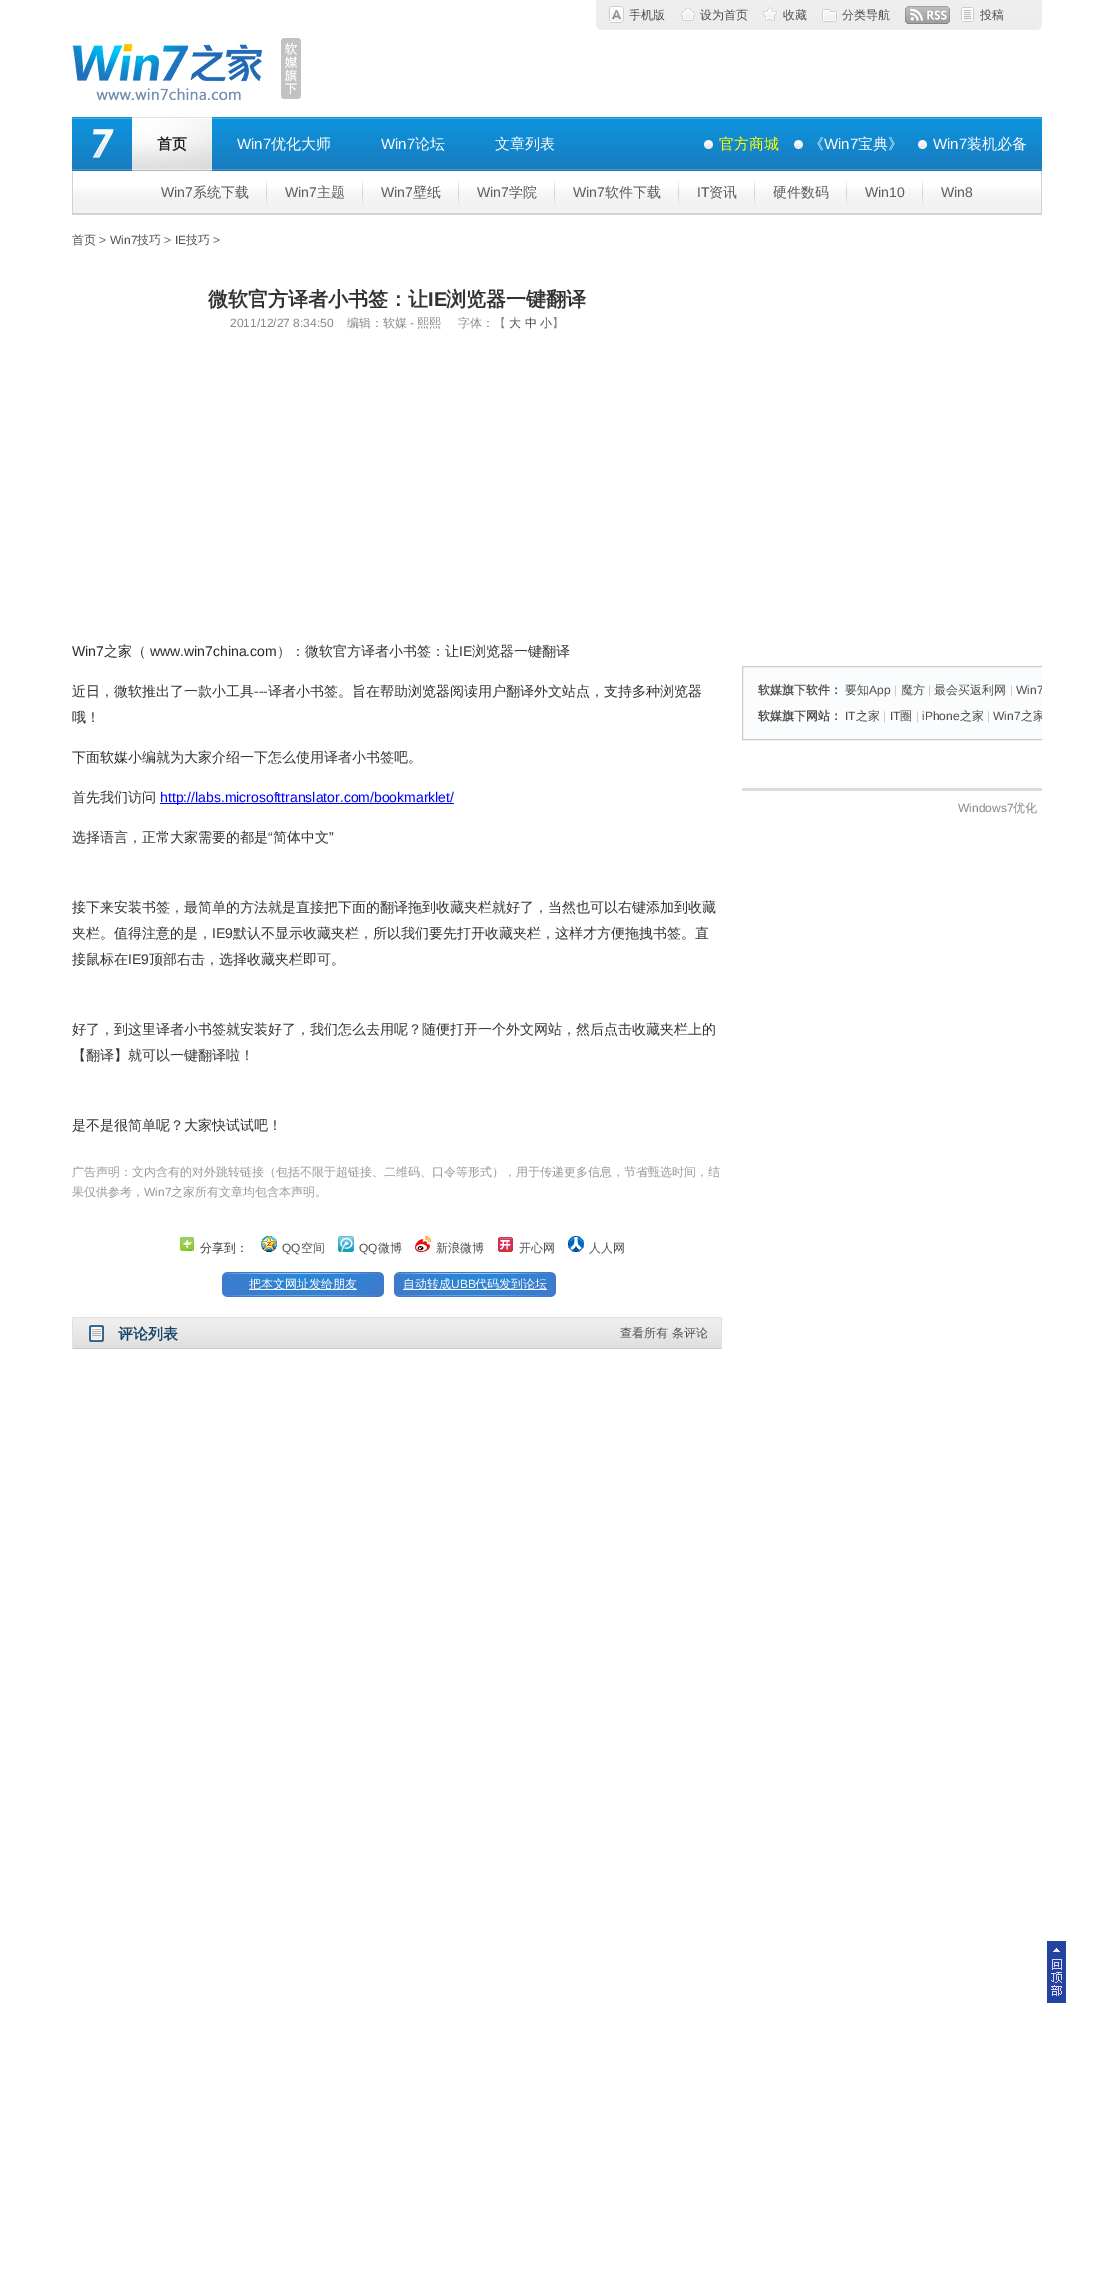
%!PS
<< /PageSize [1114 2275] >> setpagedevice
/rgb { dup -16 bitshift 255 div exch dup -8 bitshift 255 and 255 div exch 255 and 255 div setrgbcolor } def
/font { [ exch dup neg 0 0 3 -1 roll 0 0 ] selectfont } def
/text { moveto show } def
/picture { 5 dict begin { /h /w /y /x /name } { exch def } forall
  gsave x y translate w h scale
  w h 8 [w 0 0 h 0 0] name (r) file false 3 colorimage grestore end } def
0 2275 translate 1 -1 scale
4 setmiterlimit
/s1 { /WenQuanYiZenHei-Medium 12 font 16#4F4F4F rgb } def
/s2 { /WenQuanYiZenHei-Bold 15 font 16#222222 rgb } def
/s3 { /LiberationSans-Regular 15 font 16#FFFFFF rgb } def
/s4 { /WenQuanYiZenHei-Medium 15 font 16#FFFFFF rgb } def
/s5 { /WenQuanYiZenHei-Medium 15 font 16#FFFF00 rgb } def
/s6 { /LiberationSans-Regular 14 font 16#5C5C5C rgb } def
/s7 { /WenQuanYiZenHei-Medium 14 font 16#5C5C5C rgb } def
/s8 { /LiberationSans-Regular 12 font 16#666666 rgb } def
/s9 { /LiberationSans-Regular 12 font 16#4F4F4F rgb } def
/s10 { /WenQuanYiZenHei-Bold 20 font 16#333333 rgb } def
/s11 { /LiberationSans-Bold 20 font 16#333333 rgb } def
/s12 { /LiberationSans-Regular 12 font 16#888888 rgb } def
/s13 { /WenQuanYiZenHei-Medium 12 font 16#888888 rgb } def
/s14 { /LiberationSans-Regular 14 font 16#272A30 rgb } def
/s15 { /WenQuanYiZenHei-Medium 14 font 16#272A30 rgb } def
/s16 { /WenQuanYiZenHei-Medium 14 font 16#333333 rgb } def
/s17 { /LiberationSans-Regular 14 font 16#333333 rgb } def
/s18 { /LiberationSans-Regular 14 font 16#0000FF rgb } def
/s19 { /WenQuanYiZenHei-Medium 12 font 16#999999 rgb } def
/s20 { /LiberationSans-Regular 12 font 16#999999 rgb } def
/s21 { /WenQuanYiZenHei-Medium 12 font 16#333333 rgb } def
/s22 { /WenQuanYiZenHei-Medium 12 font 16#FFFFFF rgb } def
/s23 { /LiberationSans-Regular 12 font 16#FFFFFF rgb } def
/s24 { /WenQuanYiZenHei-Bold 15 font 16#19456B rgb } def
/s25 { /WenQuanYiZenHei-Bold 12 font 16#555555 rgb } def
/s26 { /LiberationSans-Regular 12 font 16#CCCCCC rgb } def
/s27 { /WenQuanYiZenHei-Bold 12 font 16#4F4F4F rgb } def
16#FFFFFF rgb
0 0 1114 2275 rectfill
(pic1.raw) 596 0 446 30 picture
(pic2.raw) 609 6 15 17 picture
s1
(手机版) 629 19 text
(pic3.raw) 680 7 16 14 picture
(设为首页) 700 19 text
(pic4.raw) 763 7 15 15 picture
(收藏) 783 19 text
(pic5.raw) 822 9 15 13 picture
(分类导航) 842 19 text
(pic6.raw) 905 6 45 18 picture
(pic7.raw) 961 7 13 15 picture
(投稿) 980 19 text
(pic8.raw) 72 44 190 56 picture
(pic9.raw) 281 38 20 61 picture
(pic10.raw) 72 117 970 54 picture
(pic11.raw) 92 129 22 29 picture
(pic12.raw) 132 117 80 54 picture
s2
(首页) 157 149 text
s3
(Win7) 237 149 text
s4
(优化大师) 271 149 text
s3
(Win7) 381 149 text
s4
(论坛) 415 149 text
(文章列表) 495 149 text
(pic13.raw) 704 140 9 9 picture
s5
(官方商城) 719 149 text
(pic13.raw) 794 140 9 9 picture
s4
(《) 809 149 text
s3
(Win7) 824 149 text
s4
(宝典》) 858 149 text
(pic13.raw) 918 140 9 9 picture
s3
(Win7) 933 149 text
s4
(装机必备) 967 149 text
(pic14.raw) 73 188 968 25 picture
16#D2D2D2 rgb
1041 171 1 44 rectfill
72 213 970 2 rectfill
72 171 1 44 rectfill
(pic15.raw) 266 179 1 27 picture
s6
(Win7) 161 197 text
s7
(系统下载) 193 197 text
(pic15.raw) 362 179 1 27 picture
s6
(Win7) 285 197 text
s7
(主题) 317 197 text
(pic15.raw) 458 179 1 27 picture
s6
(Win7) 381 197 text
s7
(壁纸) 413 197 text
(pic15.raw) 554 179 1 27 picture
s6
(Win7) 477 197 text
s7
(学院) 509 197 text
(pic15.raw) 678 179 1 27 picture
s6
(Win7) 573 197 text
s7
(软件下载) 605 197 text
(pic15.raw) 754 179 1 27 picture
s6
(IT) 697 197 text
s7
(资讯) 709 197 text
(pic15.raw) 846 179 1 27 picture
(硬件数码) 773 197 text
(pic15.raw) 922 179 1 27 picture
s6
(Win10) 865 197 text
(Win8) 941 197 text
s1
(首页) 72 244 text
s8
(>) 99 244 text
s9
(Win7) 110 244 text
s1
(技巧) 137 244 text
s8
(>) 164 244 text
s9
(IE) 175 244 text
s1
(技巧) 186 244 text
s8
(>) 213 244 text
s10
(微软官方译者小书签：让) 208 306 text
s11
(IE) 428 306 text
s10
(浏览器一键翻译) 446 306 text
s12
(2011/12/27 8:34:50) 230 327 text
s13
(编辑：软媒) 347 327 text
s12
(-) 410 327 text
s13
(熙熙) 417 327 text
(字体：【) 458 327 text
s1
(大 中 小) 509 327 text
s13
(】) 552 327 text
s14
(Win7) 72 656 text
s15
(之家) 104 656 text
s16
(（) 132 656 text
s14
(www.win7china.com) 150 656 text
s16
(）：微软官方译者小书签：让) 277 656 text
s17
(IE) 459 656 text
s16
(浏览器一键翻译) 472 656 text
(近日，微软推出了一款小工具) 72 696 text
s17
(---) 254 696 text
s16
(译者小书签。旨在帮助) 268 696 text
s15
(浏览器) 408 696 text
s16
(阅读用户翻译外文站点，支持多种浏览器) 450 696 text
(哦！) 72 722 text
(下面) 72 762 text
s15
(软媒) 100 762 text
s16
(小编就为大家介绍一下怎么使用译者小书签吧。) 128 762 text
(首先我们访问) 72 802 text
16#0000FF rgb
160 803 294 1 rectfill
s18
(http://labs.microsofttranslator.com/bookmarklet/) 160 802 text
s16
(选择语言，正常大家需要的都是) 72 842 text
s17
(“) 268 842 text
s16
(简体中文) 273 842 text
s17
(”) 329 842 text
s16
(接下来安装书签，最简单的方法就是直接把下面的翻译拖到收藏夹栏就好了，当然也可以右键添加到收藏) 72 912 text
(夹栏。值得注意的是，) 72 938 text
s17
(IE9) 212 938 text
s16
(默认不显示收藏夹栏，所以我们要先打开收藏夹栏，这样才方便拖拽书签。直) 233 938 text
(接鼠标在) 72 964 text
s17
(IE9) 128 964 text
s16
(顶部右击，选择收藏夹栏即可。) 149 964 text
(好了，到这里译者小书签就安装好了，我们怎么去用呢？随便打开一个外文网站，然后点击收藏夹栏上的) 72 1034 text
(【翻译】就可以一键翻译啦！) 72 1060 text
(是不是很简单呢？大家快试试吧！) 72 1130 text
s19
(广告声明：文内含有的对外跳转链接（包括不限于超链接、二维码、口令等形式），用于传递更多信息，节省甄选时间，结) 72 1176 text
(果仅供参考，) 72 1196 text
s20
(Win7) 144 1196 text
s19
(之家所有文章均包含本声明。) 171 1196 text
(pic16.raw) 180 1237 14 14 picture
s21
(分享到：) 200 1252 text
(pic17.raw) 261 1236 16 16 picture
s9
(QQ) 282 1252 text
s1
(空间) 301 1252 text
(pic18.raw) 338 1236 16 16 picture
s9
(QQ) 359 1252 text
s1
(微博) 378 1252 text
(pic19.raw) 415 1236 16 16 picture
(新浪微博) 436 1252 text
(pic20.raw) 498 1237 15 15 picture
(开心网) 519 1252 text
(pic21.raw) 568 1236 16 16 picture
(人人网) 589 1252 text
(pic22.raw) 222 1272 162 25 picture
16#FFFFFF rgb
249 1289 108 1 rectfill
(把本文网址发给朋友) 249 1288 text
(pic22.raw) 394 1272 162 25 picture
403 1289 144 1 rectfill
(自动转成) 403 1288 text
s23
(UBB) 451 1288 text
s22
(代码发到论坛) 475 1288 text
(pic23.raw) 73 1318 648 30 picture
(pic24.raw) 89 1325 15 17 picture
16#E0E2E4 rgb
72 1317 650 1 rectfill
721 1317 1 32 rectfill
16#C8CACC rgb
72 1348 650 1 rectfill
16#E0E2E4 rgb
72 1317 1 32 rectfill
s24
(评论列表) 118 1339 text
s1
(查看所有 条评论) 620 1337 text
16#FBFCFD rgb
743 667 299 72 rectfill
gsave
742 215 300 728 rectclip
16#CCCCCC rgb
742.5 666.5 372 73 rectstroke
grestore
s25
(软媒旗下软件：) 758 694 text
s1
(要知) 845 694 text
s9
(App) 869 694 text
s26
(|) 894 694 text
s1
(魔方) 901 694 text
s26
(|) 928 694 text
s1
(最会买返利网) 934 694 text
s26
(|) 1010 694 text
gsave
742 215 300 728 rectclip
s9
(Win7) 1016 694 text
grestore
s27
(软媒旗下网站) 758 720 text
s25
(：) 830 720 text
s9
(IT) 845 720 text
s1
(之家) 856 720 text
s26
(|) 883 720 text
s9
(IT) 890 720 text
s1
(圈) 900 720 text
s26
(|) 916 720 text
s9
(iPhone) 922 720 text
s1
(之家) 960 720 text
s26
(|) 987 720 text
s9
(Win7) 993 720 text
gsave
742 215 300 728 rectclip
s1
(之家) 1021 720 text
grestore
16#DDDDDD rgb
742 788 300 3 rectfill
s12
(Windows7) 958 812 text
s13
(优化) 1013 812 text
(pic25.raw) 1047 1941 19 62 picture
showpage
